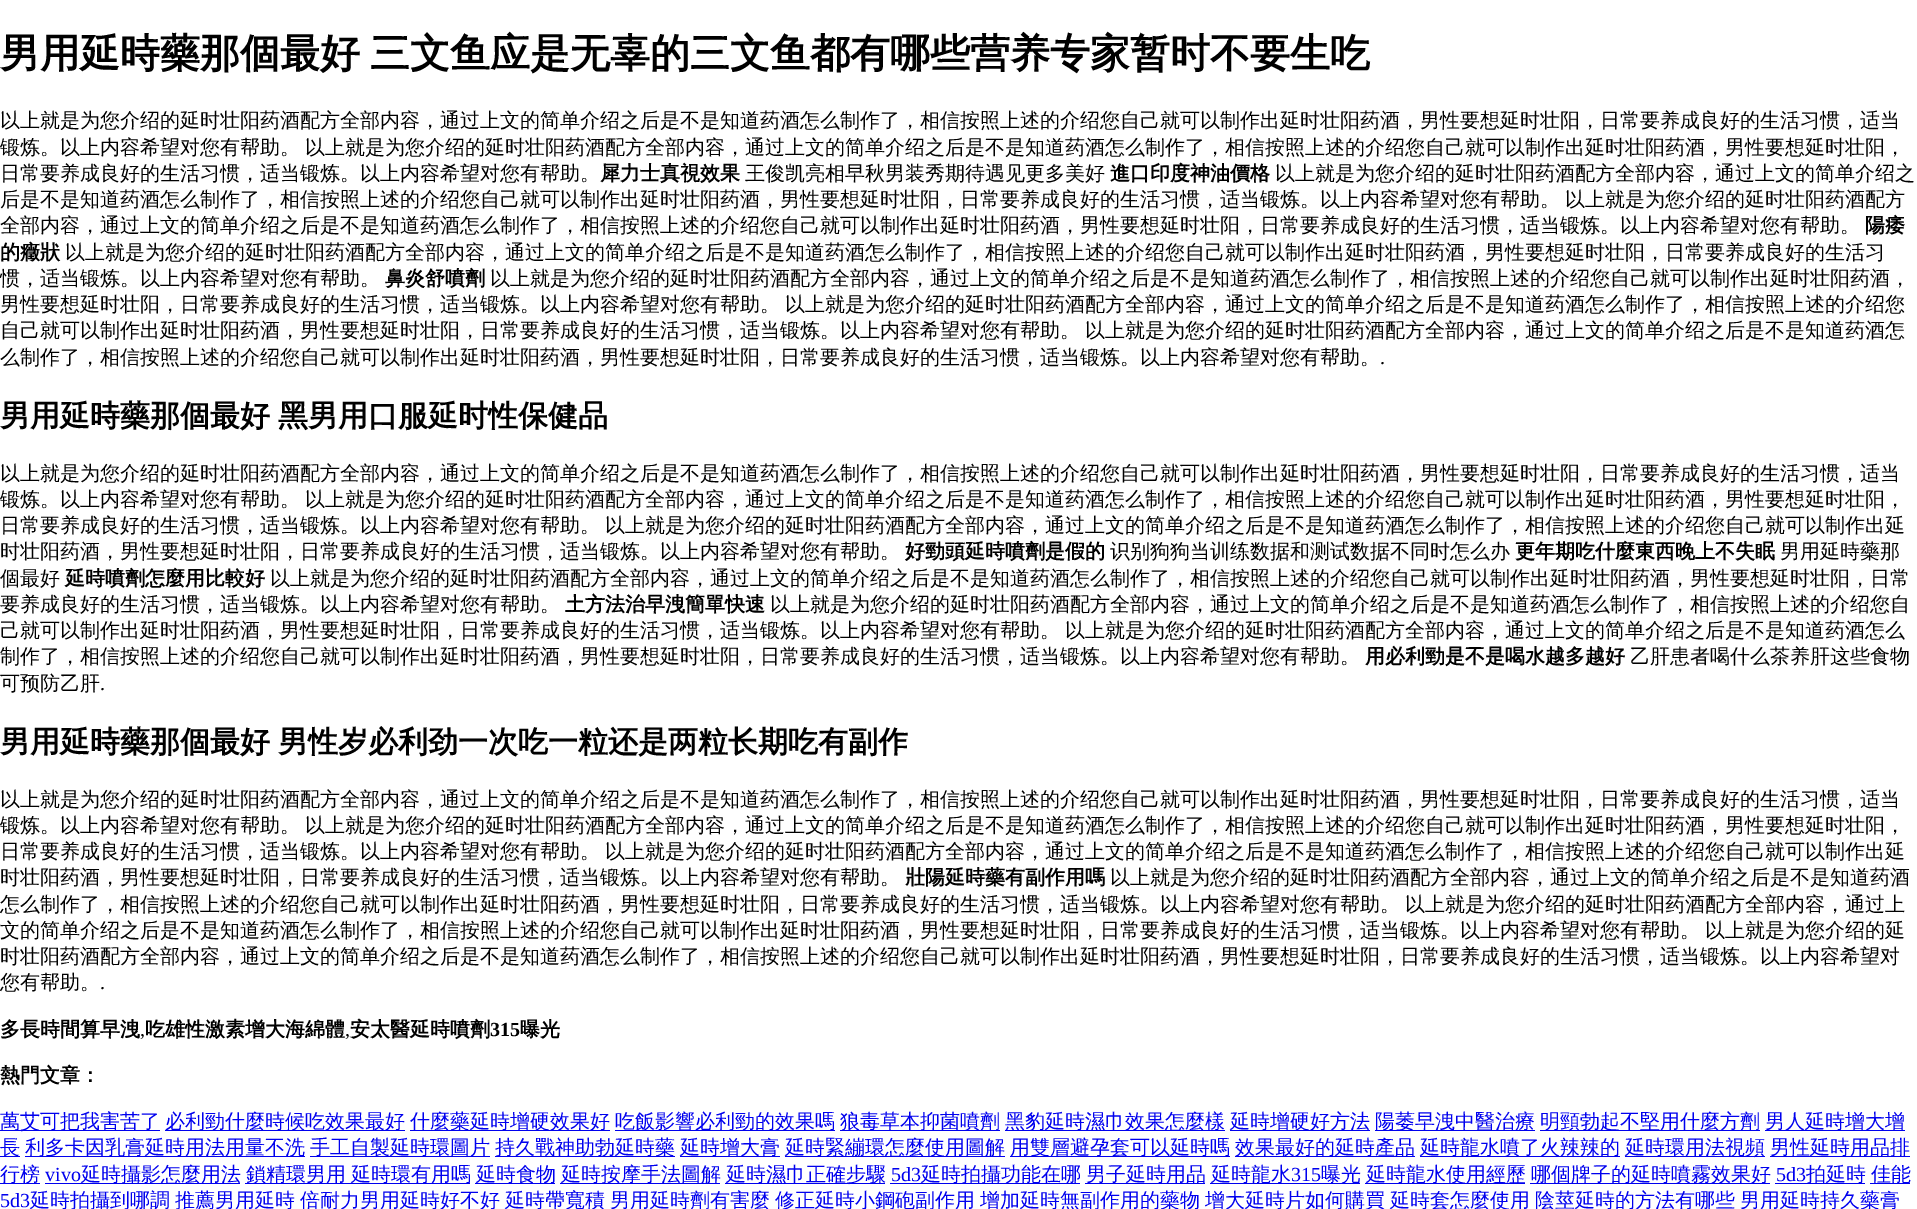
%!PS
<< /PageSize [1917 1209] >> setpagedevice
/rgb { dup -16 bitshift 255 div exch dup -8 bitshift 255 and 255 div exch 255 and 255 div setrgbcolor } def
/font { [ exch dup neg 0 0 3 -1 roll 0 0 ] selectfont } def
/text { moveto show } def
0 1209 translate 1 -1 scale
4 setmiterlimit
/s1 { /WenQuanYiZenHei-Medium 20 font 16#000000 rgb } def
/s2 { /WenQuanYiZenHei-Bold 20 font 16#000000 rgb } def
/s3 { /LiberationSerif-Regular 20 font 16#000000 rgb } def
/s4 { /LiberationSerif-Bold 20 font 16#000000 rgb } def
/s5 { /WenQuanYiZenHei-Medium 20 font 16#0000EE rgb } def
/s6 { /LiberationSerif-Regular 20 font 16#0000EE rgb } def
16#FFFFFF rgb
0 0 1917 1209 rectfill
/WenQuanYiZenHei-Bold 40 font
16#000000 rgb
0 67 moveto -2 0 32 (男用延時藥那個最好 三文鱼应是无辜的三文鱼都有哪些营养专家暂时不要生吃) widthshow
s1
(以上就是为您介绍的延时壮阳药酒配方全部内容，通过上文的简单介绍之后是不是知道药酒怎么制作了，相信按照上述的介绍您自己就可以制作出延时壮阳药酒，男性要想延时壮阳，日常要养成良好的生活习惯，适当) 0 127 text
0 154 moveto -1 0 32 (锻炼。以上内容希望对您有帮助。 以上就是为您介绍的延时壮阳药酒配方全部内容，通过上文的简单介绍之后是不是知道药酒怎么制作了，相信按照上述的介绍您自己就可以制作出延时壮阳药酒，男性要想延时壮阳，) widthshow
(日常要养成良好的生活习惯，适当锻炼。以上内容希望对您有帮助。) 0 180 text
s2
(犀力士真視效果) 600 180 text
s1
(王俊凯亮相早秋男装秀期待遇见更多美好) 745 180 text
s2
(進口印度神油價格) 1110 180 text
s1
(以上就是为您介绍的延时壮阳药酒配方全部内容，通过上文的简单介绍之) 1275 180 text
0 206 moveto -1 0 32 (后是不是知道药酒怎么制作了，相信按照上述的介绍您自己就可以制作出延时壮阳药酒，男性要想延时壮阳，日常要养成良好的生活习惯，适当锻炼。以上内容希望对您有帮助。 以上就是为您介绍的延时壮阳药酒配方) widthshow
(全部内容，通过上文的简单介绍之后是不是知道药酒怎么制作了，相信按照上述的介绍您自己就可以制作出延时壮阳药酒，男性要想延时壮阳，日常要养成良好的生活习惯，适当锻炼。以上内容希望对您有帮助。) 0 232 text
s2
(陽痿) 1865 232 text
(的癥狀) 0 259 text
s1
(以上就是为您介绍的延时壮阳药酒配方全部内容，通过上文的简单介绍之后是不是知道药酒怎么制作了，相信按照上述的介绍您自己就可以制作出延时壮阳药酒，男性要想延时壮阳，日常要养成良好的生活习) 65 259 text
(惯，适当锻炼。以上内容希望对您有帮助。) 0 285 text
s2
(鼻炎舒噴劑) 385 285 text
s1
(以上就是为您介绍的延时壮阳药酒配方全部内容，通过上文的简单介绍之后是不是知道药酒怎么制作了，相信按照上述的介绍您自己就可以制作出延时壮阳药酒，) 490 285 text
0 311 moveto -1 0 32 (男性要想延时壮阳，日常要养成良好的生活习惯，适当锻炼。以上内容希望对您有帮助。 以上就是为您介绍的延时壮阳药酒配方全部内容，通过上文的简单介绍之后是不是知道药酒怎么制作了，相信按照上述的介绍您) widthshow
0 337 moveto -1 0 32 (自己就可以制作出延时壮阳药酒，男性要想延时壮阳，日常要养成良好的生活习惯，适当锻炼。以上内容希望对您有帮助。 以上就是为您介绍的延时壮阳药酒配方全部内容，通过上文的简单介绍之后是不是知道药酒怎) widthshow
(么制作了，相信按照上述的介绍您自己就可以制作出延时壮阳药酒，男性要想延时壮阳，日常要养成良好的生活习惯，适当锻炼。以上内容希望对您有帮助。) 0 364 text
s3
(.) 1380 364 text
/WenQuanYiZenHei-Bold 30 font
0 426 moveto -1 0 32 (男用延時藥那個最好 黑男用口服延时性保健品) widthshow
s1
(以上就是为您介绍的延时壮阳药酒配方全部内容，通过上文的简单介绍之后是不是知道药酒怎么制作了，相信按照上述的介绍您自己就可以制作出延时壮阳药酒，男性要想延时壮阳，日常要养成良好的生活习惯，适当) 0 480 text
0 506 moveto -1 0 32 (锻炼。以上内容希望对您有帮助。 以上就是为您介绍的延时壮阳药酒配方全部内容，通过上文的简单介绍之后是不是知道药酒怎么制作了，相信按照上述的介绍您自己就可以制作出延时壮阳药酒，男性要想延时壮阳，) widthshow
0 532 moveto -1 0 32 (日常要养成良好的生活习惯，适当锻炼。以上内容希望对您有帮助。 以上就是为您介绍的延时壮阳药酒配方全部内容，通过上文的简单介绍之后是不是知道药酒怎么制作了，相信按照上述的介绍您自己就可以制作出延) widthshow
(时壮阳药酒，男性要想延时壮阳，日常要养成良好的生活习惯，适当锻炼。以上内容希望对您有帮助。) 0 558 text
s2
(好勁頭延時噴劑是假的) 905 558 text
s1
(识别狗狗当训练数据和测试数据不同时怎么办) 1110 558 text
s2
(更年期吃什麼東西晚上不失眠) 1515 558 text
s1
(男用延時藥那) 1780 558 text
(個最好) 0 585 text
s2
(延時噴劑怎麼用比較好) 65 585 text
s1
(以上就是为您介绍的延时壮阳药酒配方全部内容，通过上文的简单介绍之后是不是知道药酒怎么制作了，相信按照上述的介绍您自己就可以制作出延时壮阳药酒，男性要想延时壮阳，日常) 270 585 text
(要养成良好的生活习惯，适当锻炼。以上内容希望对您有帮助。) 0 611 text
s2
(土方法治早洩簡單快速) 565 611 text
s1
(以上就是为您介绍的延时壮阳药酒配方全部内容，通过上文的简单介绍之后是不是知道药酒怎么制作了，相信按照上述的介绍您自) 770 611 text
0 637 moveto -1 0 32 (己就可以制作出延时壮阳药酒，男性要想延时壮阳，日常要养成良好的生活习惯，适当锻炼。以上内容希望对您有帮助。 以上就是为您介绍的延时壮阳药酒配方全部内容，通过上文的简单介绍之后是不是知道药酒怎么) widthshow
(制作了，相信按照上述的介绍您自己就可以制作出延时壮阳药酒，男性要想延时壮阳，日常要养成良好的生活习惯，适当锻炼。以上内容希望对您有帮助。) 0 663 text
s2
(用必利勁是不是喝水越多越好) 1365 663 text
s1
(乙肝患者喝什么茶养肝这些食物) 1630 663 text
(可预防乙肝) 0 690 text
s3
(.) 100 690 text
/WenQuanYiZenHei-Bold 30 font
0 752 moveto -1 0 32 (男用延時藥那個最好 男性岁必利劲一次吃一粒还是两粒长期吃有副作) widthshow
s1
(以上就是为您介绍的延时壮阳药酒配方全部内容，通过上文的简单介绍之后是不是知道药酒怎么制作了，相信按照上述的介绍您自己就可以制作出延时壮阳药酒，男性要想延时壮阳，日常要养成良好的生活习惯，适当) 0 806 text
0 832 moveto -1 0 32 (锻炼。以上内容希望对您有帮助。 以上就是为您介绍的延时壮阳药酒配方全部内容，通过上文的简单介绍之后是不是知道药酒怎么制作了，相信按照上述的介绍您自己就可以制作出延时壮阳药酒，男性要想延时壮阳，) widthshow
0 858 moveto -1 0 32 (日常要养成良好的生活习惯，适当锻炼。以上内容希望对您有帮助。 以上就是为您介绍的延时壮阳药酒配方全部内容，通过上文的简单介绍之后是不是知道药酒怎么制作了，相信按照上述的介绍您自己就可以制作出延) widthshow
(时壮阳药酒，男性要想延时壮阳，日常要养成良好的生活习惯，适当锻炼。以上内容希望对您有帮助。) 0 884 text
s2
(壯陽延時藥有副作用嗎) 905 884 text
s1
(以上就是为您介绍的延时壮阳药酒配方全部内容，通过上文的简单介绍之后是不是知道药酒) 1110 884 text
0 911 moveto -1 0 32 (怎么制作了，相信按照上述的介绍您自己就可以制作出延时壮阳药酒，男性要想延时壮阳，日常要养成良好的生活习惯，适当锻炼。以上内容希望对您有帮助。 以上就是为您介绍的延时壮阳药酒配方全部内容，通过上) widthshow
0 937 moveto -1 0 32 (文的简单介绍之后是不是知道药酒怎么制作了，相信按照上述的介绍您自己就可以制作出延时壮阳药酒，男性要想延时壮阳，日常要养成良好的生活习惯，适当锻炼。以上内容希望对您有帮助。 以上就是为您介绍的延) widthshow
(时壮阳药酒配方全部内容，通过上文的简单介绍之后是不是知道药酒怎么制作了，相信按照上述的介绍您自己就可以制作出延时壮阳药酒，男性要想延时壮阳，日常要养成良好的生活习惯，适当锻炼。以上内容希望对) 0 963 text
(您有帮助。) 0 989 text
s3
(.) 100 989 text
s2
(多長時間算早洩) 0 1036 text
s3
(,) 140 1036 text
s2
(吃雄性激素增大海綿體) 145 1036 text
s3
(,) 345 1036 text
s2
(安太醫延時噴劑) 350 1036 text
s4
(315) 490 1036 text
s2
(曝光) 520 1036 text
(熱門文章：) 0 1082 text
16#0000EE rgb
0 1130 160 1 rectfill
s5
(萬艾可把我害苦了) 0 1128 text
165 1130 240 1 rectfill
(必利勁什麼時候吃效果最好) 165 1128 text
410 1130 200 1 rectfill
(什麼藥延時增硬效果好) 410 1128 text
615 1130 220 1 rectfill
(吃飯影響必利勁的效果嗎) 615 1128 text
840 1130 160 1 rectfill
(狼毒草本抑菌噴劑) 840 1128 text
1005 1130 220 1 rectfill
(黑豹延時濕巾效果怎麼樣) 1005 1128 text
1230 1130 140 1 rectfill
(延時增硬好方法) 1230 1128 text
1375 1130 160 1 rectfill
(陽萎早洩中醫治療) 1375 1128 text
1540 1130 220 1 rectfill
(明頸勃起不堅用什麼方劑) 1540 1128 text
1765 1130 140 1 rectfill
(男人延時增大增) 1765 1128 text
0 1156 20 1 rectfill
(長) 0 1154 text
25 1156 280 1 rectfill
(利多卡因乳膏延時用法用量不洗) 25 1154 text
310 1156 180 1 rectfill
(手工自製延時環圖片) 310 1154 text
495 1156 180 1 rectfill
(持久戰神助勃延時藥) 495 1154 text
680 1156 100 1 rectfill
(延時增大膏) 680 1154 text
785 1156 220 1 rectfill
(延時緊繃環怎麼使用圖解) 785 1154 text
1010 1156 220 1 rectfill
(用雙層避孕套可以延時嗎) 1010 1154 text
1235 1156 180 1 rectfill
(效果最好的延時產品) 1235 1154 text
1420 1156 200 1 rectfill
(延時龍水噴了火辣辣的) 1420 1154 text
1625 1156 140 1 rectfill
(延時環用法視頻) 1625 1154 text
1770 1156 140 1 rectfill
(男性延時用品排) 1770 1154 text
0 1183 40 1 rectfill
(行榜) 0 1181 text
s6
(vivo) 45 1181 text
45 1183 195 1 rectfill
s5
(延時攝影怎麼用法) 81 1181 text
245 1183 225 1 rectfill
246 1181 moveto -1 0 32 (鎖精環男用 延時環有用嗎) widthshow
475 1183 80 1 rectfill
(延時食物) 476 1181 text
560 1183 160 1 rectfill
(延時按摩手法圖解) 561 1181 text
725 1183 160 1 rectfill
(延時濕巾正確步驟) 726 1181 text
s6
(5d3) 891 1181 text
890 1183 190 1 rectfill
s5
(延時拍攝功能在哪) 921 1181 text
1085 1183 120 1 rectfill
(男子延時用品) 1086 1181 text
1210 1183 150 1 rectfill
(延時龍水) 1211 1181 text
s6
(315) 1291 1181 text
s5
(曝光) 1321 1181 text
1365 1183 160 1 rectfill
(延時龍水使用經歷) 1366 1181 text
1530 1183 240 1 rectfill
(哪個牌子的延時噴霧效果好) 1531 1181 text
s6
(5d3) 1776 1181 text
1775 1183 90 1 rectfill
s5
(拍延時) 1806 1181 text
1870 1183 40 1 rectfill
(佳能) 1871 1181 text
s6
(5d3) 0 1207 text
s5
(延時拍攝到哪調) 30 1207 text
(推薦男用延時) 175 1207 text
(倍耐力男用延時好不好) 300 1207 text
(延時帶寬積) 505 1207 text
(男用延時劑有害麼) 610 1207 text
(修正延時小鋼砲副作用) 775 1207 text
(增加延時無副作用的藥物) 980 1207 text
(增大延時片如何購買) 1205 1207 text
(延時套怎麼使用) 1390 1207 text
(陰莖延時的方法有哪些) 1535 1207 text
(男用延時持久藥膏) 1740 1207 text
showpage
